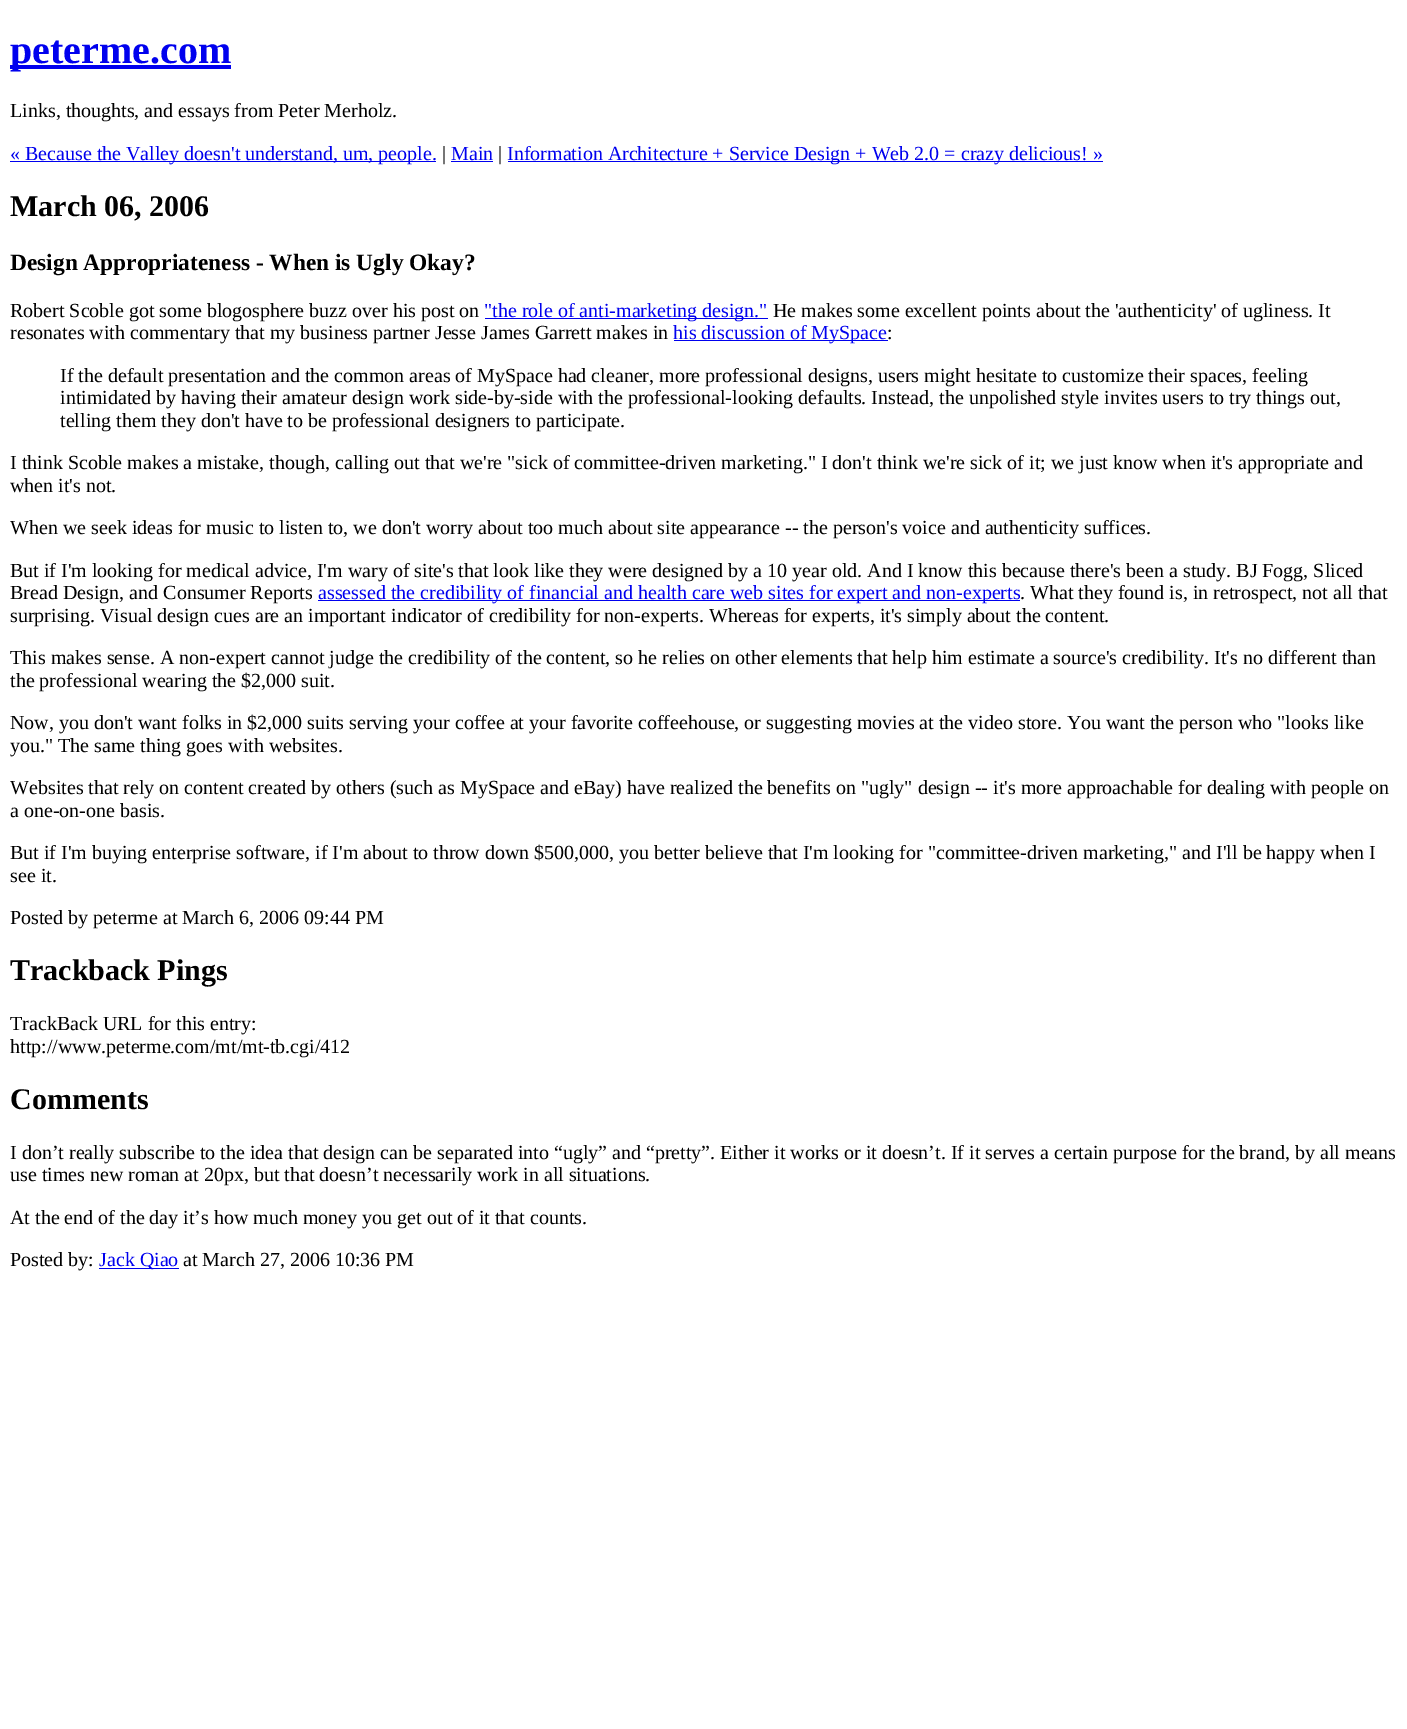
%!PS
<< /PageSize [1407 1729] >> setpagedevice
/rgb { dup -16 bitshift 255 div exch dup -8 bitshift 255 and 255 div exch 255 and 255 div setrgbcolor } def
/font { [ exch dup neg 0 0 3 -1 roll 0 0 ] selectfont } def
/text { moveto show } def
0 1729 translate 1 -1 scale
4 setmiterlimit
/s1 { /LiberationSerif-Bold 40 font 16#0000EE rgb } def
/s2 { /LiberationSerif-Regular 20 font 16#000000 rgb } def
/s3 { /LiberationSerif-Regular 20 font 16#0000EE rgb } def
/s4 { /LiberationSerif-Bold 30 font 16#000000 rgb } def
/s5 { /LiberationSerif-Bold 23.4 font 16#000000 rgb } def
16#FFFFFF rgb
0 0 1407 1729 rectfill
16#0000EE rgb
10 65 221 4 rectfill
s1
(peterme.com) 10 63 text
s2
(Links, thoughts, and essays from Peter Merholz.) 10 117 text
16#0000EE rgb
10 161 426 1 rectfill
(« Because the Valley doesn't understand, um, people.) 10 160 text
s2
(|) 442 160 text
s3
(Main) 451 160 text
451 161 42 1 rectfill
s2
(|) 498 160 text
16#0000EE rgb
508 161 595 1 rectfill
(Information Architecture + Service Design + Web 2.0 = crazy delicious! ») 507 160 text
s4
(March 06, 2006) 10 216 text
s5
(Design Appropriateness - When is Ugly Okay?) 10 270 text
s2
(Robert Scoble got some blogosphere buzz over his post on) 10 317 text
16#0000EE rgb
485 318 283 1 rectfill
("the role of anti-marketing design.") 484 317 text
s2
(He makes some excellent points about the 'authenticity' of ugliness. It) 773 317 text
(resonates with commentary that my business partner Jesse James Garrett makes in) 10 339 text
16#0000EE rgb
674 340 214 1 rectfill
(his discussion of MySpace) 673 339 text
s2
(:) 887 339 text
(If the default presentation and the common areas of MySpace had cleaner, more professional designs, users might hesitate to customize their spaces, feeling) 60 382 text
(intimidated by having their amateur design work side-by-side with the professional-looking defaults. Instead, the unpolished style invites users to try things out,) 60 404 text
(telling them they don't have to be professional designers to participate.) 60 427 text
(I think Scoble makes a mistake, though, calling out that we're "sick of committee-driven marketing." I don't think we're sick of it; we just know when it's appropriate and) 10 469 text
(when it's not.) 10 492 text
(When we seek ideas for music to listen to, we don't worry about too much about site appearance -- the person's voice and authenticity suffices.) 10 534 text
(But if I'm looking for medical advice, I'm wary of site's that look like they were designed by a 10 year old. And I know this because there's been a study. BJ Fogg, Sliced) 10 577 text
(Bread Design, and Consumer Reports) 10 599 text
16#0000EE rgb
318 600 702 1 rectfill
(assessed the credibility of financial and health care web sites for expert and non-experts) 318 599 text
s2
(. What they found is, in retrospect, not all that) 1020 599 text
(surprising. Visual design cues are an important indicator of credibility for non-experts. Whereas for experts, it's simply about the content.) 10 622 text
(This makes sense. A non-expert cannot judge the credibility of the content, so he relies on other elements that help him estimate a source's credibility. It's no different than) 10 664 text
(the professional wearing the $2,000 suit.) 10 687 text
(Now, you don't want folks in $2,000 suits serving your coffee at your favorite coffeehouse, or suggesting movies at the video store. You want the person who "looks like) 10 729 text
(you." The same thing goes with websites.) 10 752 text
(Websites that rely on content created by others \(such as MySpace and eBay\) have realized the benefits on "ugly" design -- it's more approachable for dealing with people on) 10 794 text
(a one-on-one basis.) 10 817 text
(But if I'm buying enterprise software, if I'm about to throw down $500,000, you better believe that I'm looking for "committee-driven marketing," and I'll be happy when I) 10 859 text
(see it.) 10 882 text
(Posted by peterme at March 6, 2006 09:44 PM) 10 924 text
s4
(Trackback Pings) 10 980 text
s2
(TrackBack URL for this entry:) 10 1030 text
(http://www.peterme.com/mt/mt-tb.cgi/412) 10 1053 text
s4
(Comments) 10 1109 text
s2
(I don’t really subscribe to the idea that design can be separated into “ugly” and “pretty”. Either it works or it doesn’t. If it serves a certain purpose for the brand, by all means) 10 1159 text
(use times new roman at 20px, but that doesn’t necessarily work in all situations.) 10 1181 text
(At the end of the day it’s how much money you get out of it that counts.) 10 1224 text
(Posted by:) 10 1266 text
16#0000EE rgb
99 1268 80 1 rectfill
(Jack Qiao) 99 1266 text
s2
(at March 27, 2006 10:36 PM) 183 1266 text
showpage
